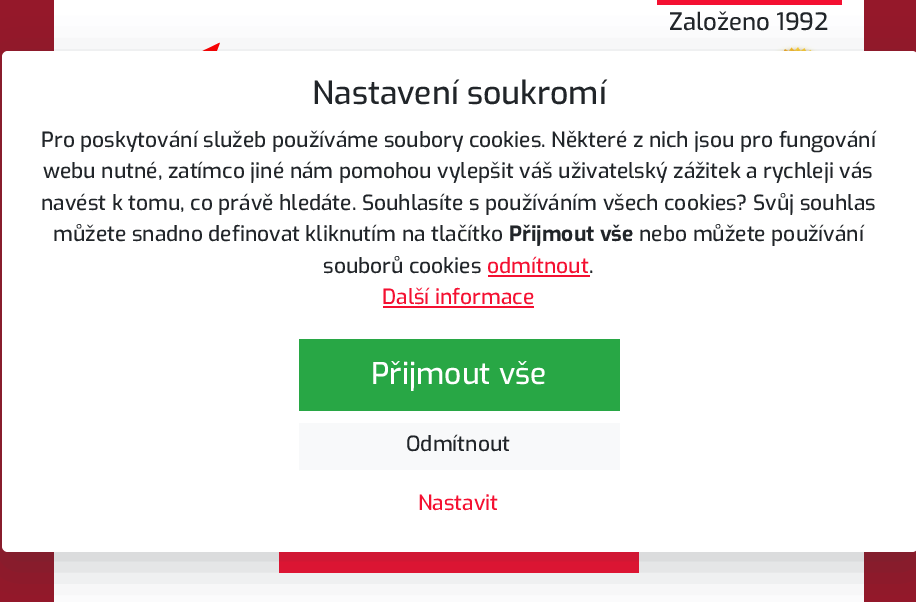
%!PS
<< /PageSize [916 602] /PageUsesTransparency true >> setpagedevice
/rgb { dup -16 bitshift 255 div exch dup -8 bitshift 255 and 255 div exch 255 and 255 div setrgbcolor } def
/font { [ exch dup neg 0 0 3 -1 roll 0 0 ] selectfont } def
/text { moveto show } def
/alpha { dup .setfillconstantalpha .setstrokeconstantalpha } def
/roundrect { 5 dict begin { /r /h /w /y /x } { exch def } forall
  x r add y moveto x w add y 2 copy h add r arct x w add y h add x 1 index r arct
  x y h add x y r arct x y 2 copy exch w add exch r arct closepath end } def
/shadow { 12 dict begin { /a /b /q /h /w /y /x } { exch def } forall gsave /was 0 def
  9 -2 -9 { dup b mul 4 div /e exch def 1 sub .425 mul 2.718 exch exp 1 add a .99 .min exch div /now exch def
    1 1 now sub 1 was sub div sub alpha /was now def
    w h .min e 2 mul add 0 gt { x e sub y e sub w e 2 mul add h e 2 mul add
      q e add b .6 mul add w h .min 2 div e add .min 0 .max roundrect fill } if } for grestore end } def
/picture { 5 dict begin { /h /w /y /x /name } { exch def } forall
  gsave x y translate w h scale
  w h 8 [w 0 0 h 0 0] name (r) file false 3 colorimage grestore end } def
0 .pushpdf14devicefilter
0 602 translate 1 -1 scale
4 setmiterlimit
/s1 { /Exo-Medium 24 font 16#212529 rgb } def
/s2 { /Exo-Medium 32 font 16#212529 rgb } def
/s3 { /Exo-Medium 21 font 16#212529 rgb } def
/s4 { /Exo-Bold 21 font 16#212529 rgb } def
/s5 { /Exo-Medium 21 font 16#F41031 rgb } def
/s6 { /Exo-Medium 30 font 16#FFFFFF rgb } def
16#95182A rgb
0 0 916 602 rectfill
16#FFFFFF rgb
54 0 810 51 rectfill
16#F41031 rgb
657 0 185 5 rectfill
s1
(Založeno 1992) 669 30 text
(pic1.raw) 202 42 18 9 picture
(pic2.raw) 750 45 90 6 picture
16#FFFFFF rgb
54 552 810 50 rectfill
16#F41031 rgb
279 552 360 21 rectfill
gsave
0 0 moveto 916 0 lineto 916 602 lineto 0 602 lineto closepath 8 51 moveto 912 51 lineto 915.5 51 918 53.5 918 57 curveto 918 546 lineto 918 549.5 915.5 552 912 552 curveto 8 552 lineto 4.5 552 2 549.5 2 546 curveto 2 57 lineto 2 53.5 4.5 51 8 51 curveto closepath eoclip newpath
16#343A40 rgb
2 66 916 501 6 22.5 0.25 shadow
grestore
16#FFFFFF rgb
2 51 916 501 6 roundrect fill
s2
(Nastavení soukromí) 312 104 text
s3
(Pro poskytování služeb používáme soubory cookies. Některé z nich jsou pro fungování) 41 147 text
(webu nutné, zatímco jiné nám pomohou vylepšit váš uživatelský zážitek a rychleji vás) 43 178 text
(navést k tomu, co právě hledáte. Souhlasíte s používáním všech cookies? Svůj souhlas) 41 210 text
(můžete snadno definovat kliknutím na tlačítko) 53 241 text
s4
(Přijmout vše) 509 241 text
s3
(nebo můžete používání) 639 241 text
(souborů cookies) 323 273 text
s5
(odmítnout) 487 273 text
488 275 102 2 rectfill
s3
(.) 589 273 text
s5
(Další informace) 382 304 text
383 306 151 2 rectfill
16#28A745 rgb
299 339 321 72 rectfill
s6
(Přijmout vše) 371 384 text
16#F8F9FA rgb
299 423 321 47 rectfill
s3
(Odmítnout) 406 451 text
s5
(Nastavit) 418 510 text
.poppdf14devicefilter showpage
